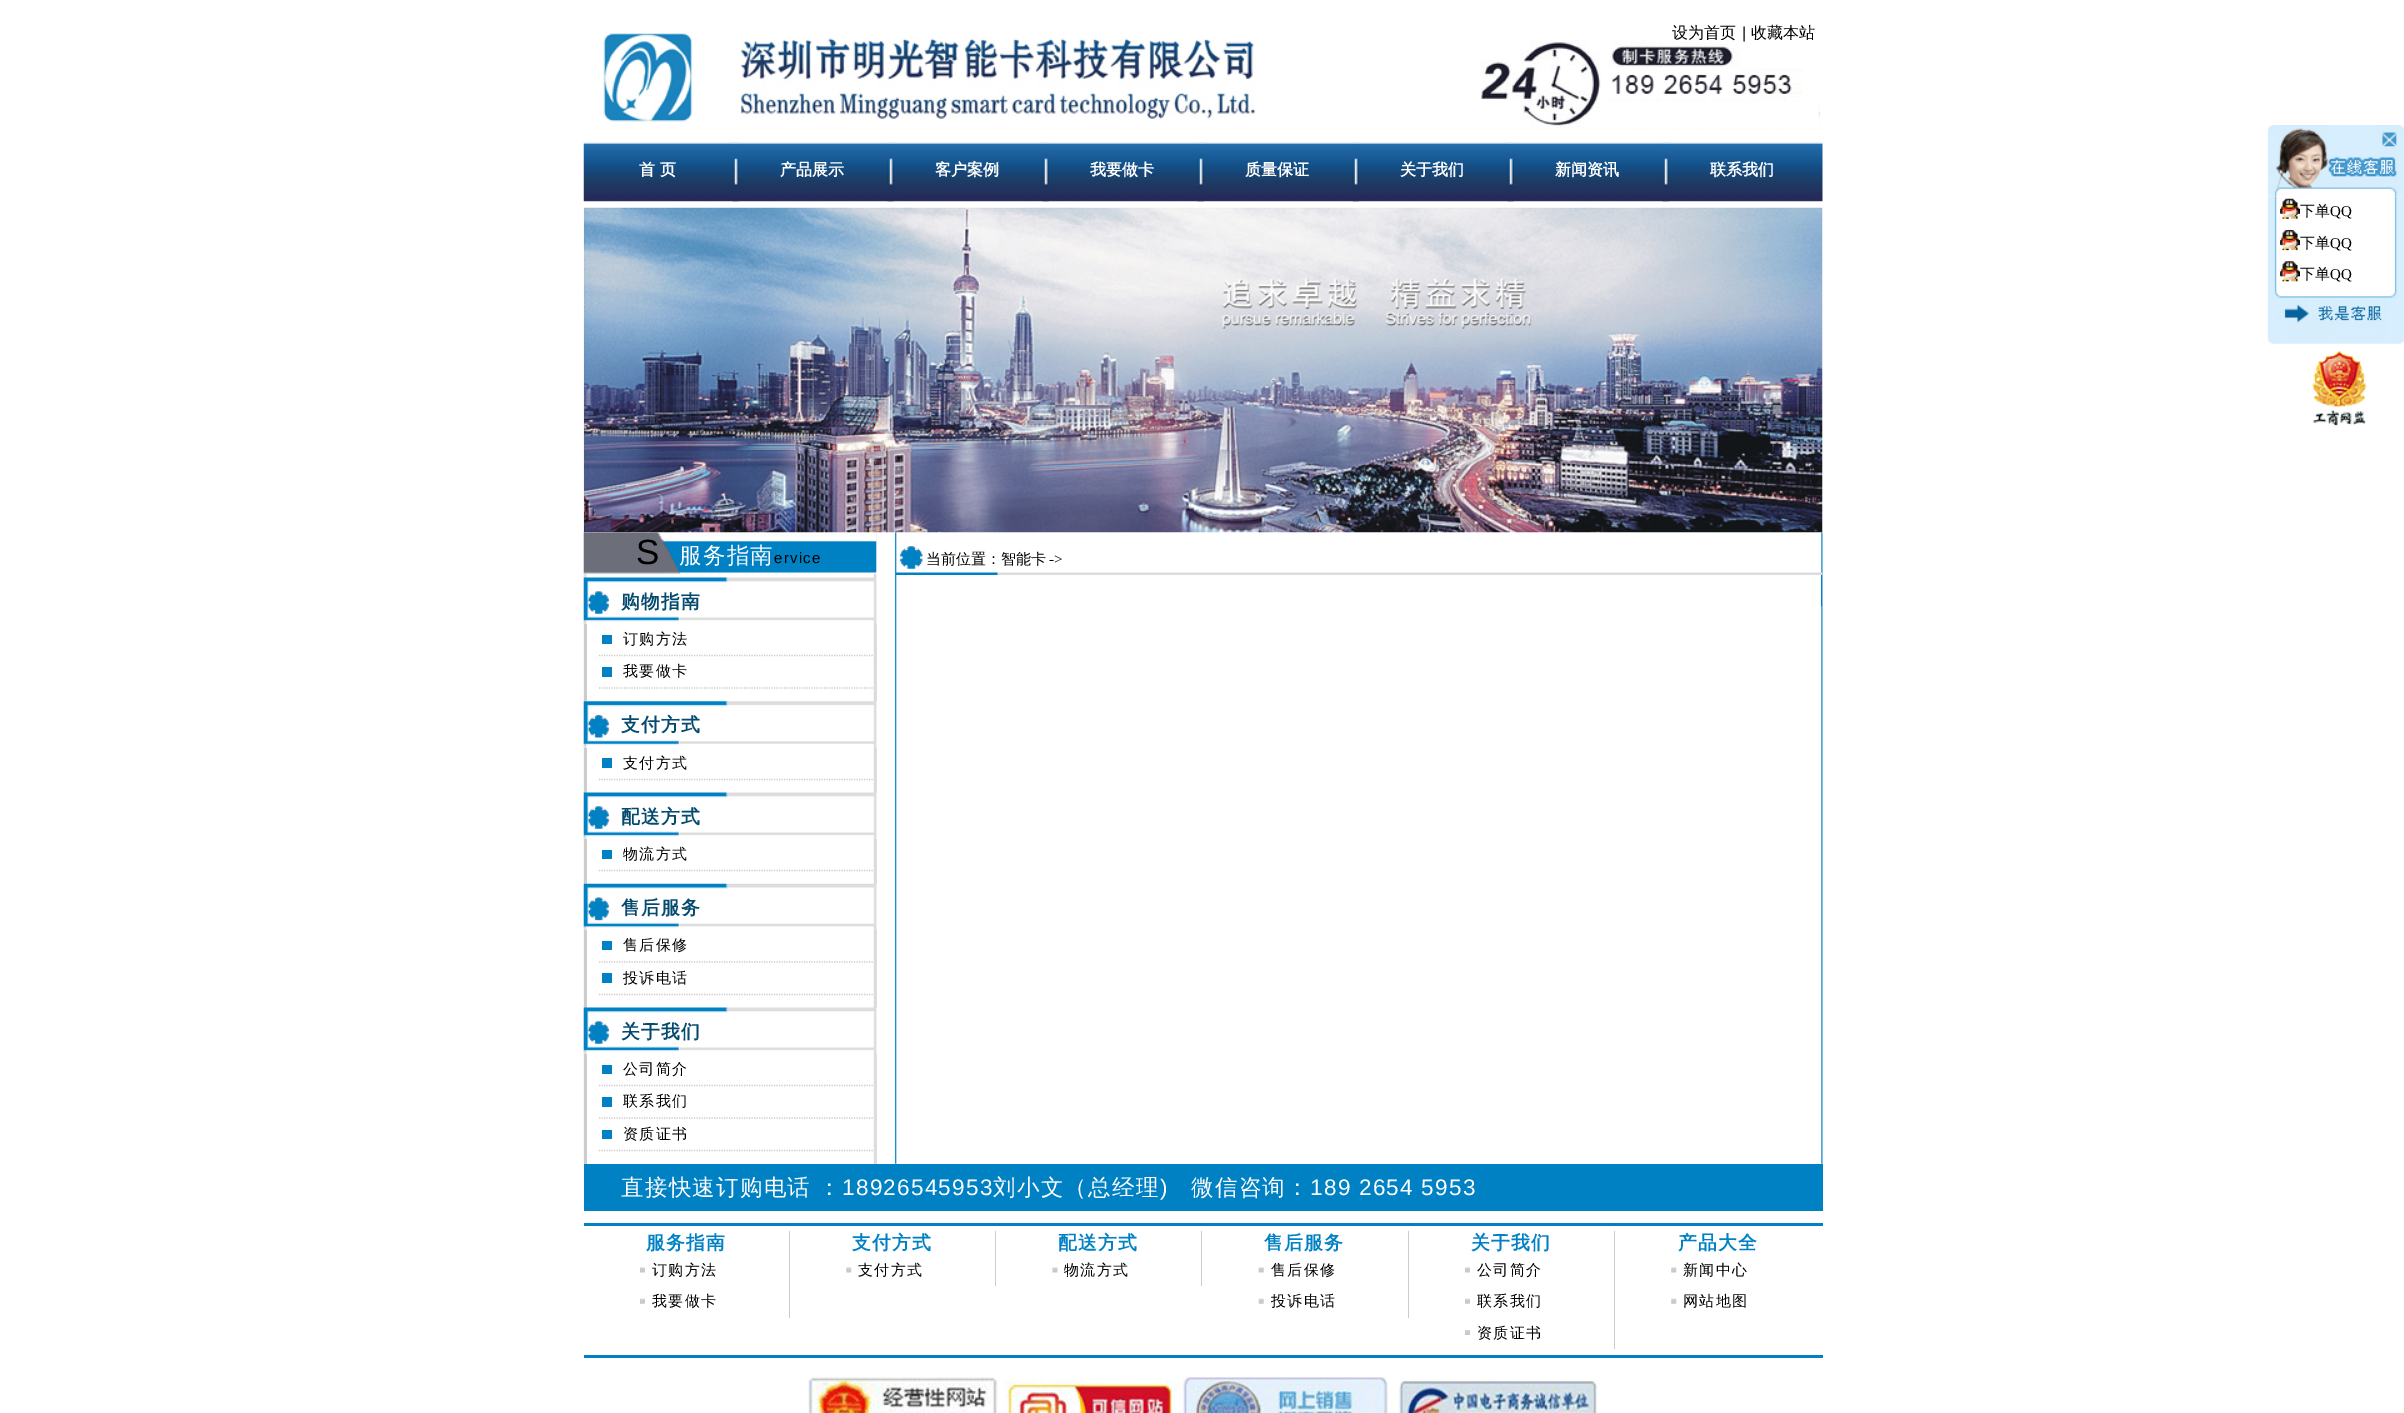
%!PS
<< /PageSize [2404 1413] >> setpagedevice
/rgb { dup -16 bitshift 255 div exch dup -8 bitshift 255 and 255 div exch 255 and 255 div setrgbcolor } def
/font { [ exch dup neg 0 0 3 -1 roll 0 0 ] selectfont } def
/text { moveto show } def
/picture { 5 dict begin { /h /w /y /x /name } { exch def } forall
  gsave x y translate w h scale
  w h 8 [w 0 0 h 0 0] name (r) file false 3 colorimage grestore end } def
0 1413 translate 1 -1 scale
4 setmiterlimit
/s1 { /WenQuanYiZenHei-Medium 16 font 16#000000 rgb } def
/s2 { /LiberationSans-Regular 16 font 16#000000 rgb } def
/s3 { /WenQuanYiZenHei-Bold 16 font 16#FFFFFF rgb } def
/s4 { /WenQuanYiZenHei-Medium 15 font 16#000000 rgb } def
/s5 { /LiberationSerif-Regular 15 font 16#000000 rgb } def
16#FFFFFF rgb
0 0 2404 1413 rectfill
(pic1.raw) 603 33 90 89 picture
(pic2.raw) 740 38 516 81 picture
(pic3.raw) 1480 40 340 90 picture
s1
(设为首页) 1672 38 text
s2
(|) 1742 38 text
s1
(收藏本站) 1751 38 text
(pic4.raw) 583 142 1240 60 picture
s3
(首 页) 639 175 text
(pic5.raw) 732 142 7 60 picture
(产品展示) 780 175 text
(pic5.raw) 887 142 7 60 picture
(客户案例) 935 175 text
(pic6.raw) 1042 142 7 60 picture
(我要做卡) 1090 175 text
(pic7.raw) 1197 142 7 60 picture
(质量保证) 1245 175 text
(pic5.raw) 1352 142 7 60 picture
(关于我们) 1400 175 text
(pic5.raw) 1507 142 7 60 picture
(新闻资讯) 1555 175 text
(pic8.raw) 1662 142 7 60 picture
(联系我们) 1710 175 text
(pic17.raw) 583 532 1240 632 picture
(pic18.raw) 583 532 97 42 picture
(pic19.raw) 680 532 197 42 picture
(pic9.raw) 583 207 1240 326 picture
(pic10.raw) 2267 125 137 71 picture
(pic11.raw) 2267 196 137 94 picture
(pic12.raw) 2280 198 20 21 picture
s4
(下单) 2300 216 text
s5
(QQ) 2330 216 text
(pic13.raw) 2280 230 20 21 picture
s4
(下单) 2300 248 text
s5
(QQ) 2330 248 text
(pic14.raw) 2280 261 20 21 picture
s4
(下单) 2300 279 text
s5
(QQ) 2330 279 text
(pic15.raw) 2267 290 137 54 picture
(pic16.raw) 2312 351 55 75 picture
/LiberationSans-Regular 35 font
636 564 moveto 1.25 0 (S) ashow
/WenQuanYiZenHei-Medium 22.5 font
16#FFFFFF rgb
679 563 moveto 1.25 0 (服务指南) ashow
/LiberationSans-Regular 15 font
16#000000 rgb
774 563 moveto 1.25 0 (ervice) ashow
(pic20.raw) 583 577 294 47 picture
/WenQuanYiZenHei-Bold 18.75 font
16#044A6E rgb
621 608 moveto 1.25 0 (购物指南) ashow
16#DDDDDD rgb
876 624 1 77 rectfill
16#CCCCCC rgb
584 624 3 77 rectfill
16#0081C4 rgb
602 635 10 9 rectfill
16#CCCCCC rgb
1.2 setlinewidth
[1.25 1.25] 0 setdash
599 655.5 moveto 874 655.5 lineto stroke
/WenQuanYiZenHei-Medium 15 font
16#000000 rgb
623 644 moveto 1.25 0 (订购方法) ashow
16#0081C4 rgb
602 667 10 10 rectfill
16#CCCCCC rgb
599 688 moveto 874 688 lineto stroke
16#000000 rgb
623 676 moveto 1.25 0 (我要做卡) ashow
(pic21.raw) 583 701 294 46 picture
/WenQuanYiZenHei-Bold 18.75 font
16#044A6E rgb
621 731 moveto 1.25 0 (支付方式) ashow
16#DDDDDD rgb
876 748 1 45 rectfill
16#CCCCCC rgb
584 748 3 45 rectfill
16#0081C4 rgb
602 758 10 10 rectfill
16#CCCCCC rgb
599 779.5 moveto 874 779.5 lineto stroke
/WenQuanYiZenHei-Medium 15 font
16#000000 rgb
623 768 moveto 1.25 0 (支付方式) ashow
(pic22.raw) 583 792 294 47 picture
/WenQuanYiZenHei-Bold 18.75 font
16#044A6E rgb
621 823 moveto 1.25 0 (配送方式) ashow
16#DDDDDD rgb
876 839 1 45 rectfill
16#CCCCCC rgb
584 839 3 45 rectfill
16#0081C4 rgb
602 850 10 9 rectfill
16#CCCCCC rgb
599 870.5 moveto 874 870.5 lineto stroke
/WenQuanYiZenHei-Medium 15 font
16#000000 rgb
623 859 moveto 1.25 0 (物流方式) ashow
(pic23.raw) 583 883 294 47 picture
/WenQuanYiZenHei-Bold 18.75 font
16#044A6E rgb
621 914 moveto 1.25 0 (售后服务) ashow
16#DDDDDD rgb
876 930 1 78 rectfill
16#CCCCCC rgb
584 930 3 78 rectfill
16#0081C4 rgb
602 941 10 9 rectfill
16#CCCCCC rgb
599 962 moveto 874 962 lineto stroke
/WenQuanYiZenHei-Medium 15 font
16#000000 rgb
623 950 moveto 1.25 0 (售后保修) ashow
16#0081C4 rgb
602 973 10 10 rectfill
16#CCCCCC rgb
599 994.5 moveto 874 994.5 lineto stroke
16#000000 rgb
623 983 moveto 1.25 0 (投诉电话) ashow
(pic22.raw) 583 1007 294 47 picture
/WenQuanYiZenHei-Bold 18.75 font
16#044A6E rgb
621 1038 moveto 1.25 0 (关于我们) ashow
16#DDDDDD rgb
874 1054 3 110 rectfill
16#CCCCCC rgb
584 1054 3 110 rectfill
16#0081C4 rgb
602 1065 10 9 rectfill
16#CCCCCC rgb
599 1085.5 moveto 874 1085.5 lineto stroke
/WenQuanYiZenHei-Medium 15 font
16#000000 rgb
623 1074 moveto 1.25 0 (公司简介) ashow
16#0081C4 rgb
602 1097 10 10 rectfill
16#CCCCCC rgb
599 1118 moveto 874 1118 lineto stroke
16#000000 rgb
623 1106 moveto 1.25 0 (联系我们) ashow
16#0081C4 rgb
602 1130 10 9 rectfill
16#CCCCCC rgb
599 1150.5 moveto 874 1150.5 lineto stroke
16#000000 rgb
623 1139 moveto 1.25 0 (资质证书) ashow
(pic24.raw) 876 572 947 3 picture
(pic25.raw) 899 546 24 23 picture
(当前位置：智能卡) 926 564 text
s5
(->) 1049 564 text
16#0081C4 rgb
1821 575 1 31 rectfill
584 1164 1239 47 rectfill
/WenQuanYiZenHei-Medium 22.5 font
16#FFFFFF rgb
621 1195 moveto 1.25 0 (直接快速订购电话) ashow
818 1195 moveto 1.25 0 (：) ashow
/LiberationSans-Regular 22.5 font
842 1195 moveto 1.25 0 (18926545953) ashow
/WenQuanYiZenHei-Medium 22.5 font
993 1195 moveto 1.25 0 (刘小文（总经理) ashow
/LiberationSans-Regular 22.5 font
1160 1195 moveto 1.25 0 (\)) ashow
/WenQuanYiZenHei-Medium 22.5 font
1191 1195 moveto 1.25 0 (微信咨询：) ashow
/LiberationSans-Regular 22.5 font
1310 1195 moveto 1.25 0 (189 2654 5953) ashow
16#0081C4 rgb
584 1223 1239 3 rectfill
584 1355 1239 3 rectfill
16#CCCCCC rgb
789 1231 1 87 rectfill
/WenQuanYiZenHei-Bold 18.75 font
16#0081C4 rgb
646 1249 moveto 1.25 0 (服务指南) ashow
(pic26.raw) 640 1267 5 6 picture
/WenQuanYiZenHei-Medium 15 font
16#000000 rgb
652 1275 moveto 1.25 0 (订购方法) ashow
(pic27.raw) 640 1298 5 6 picture
652 1306 moveto 1.25 0 (我要做卡) ashow
16#CCCCCC rgb
995 1231 1 55 rectfill
/WenQuanYiZenHei-Bold 18.75 font
16#0081C4 rgb
852 1249 moveto 1.25 0 (支付方式) ashow
(pic28.raw) 846 1267 6 6 picture
/WenQuanYiZenHei-Medium 15 font
16#000000 rgb
858 1275 moveto 1.25 0 (支付方式) ashow
16#CCCCCC rgb
1201 1231 1 55 rectfill
/WenQuanYiZenHei-Bold 18.75 font
16#0081C4 rgb
1058 1249 moveto 1.25 0 (配送方式) ashow
(pic29.raw) 1052 1267 6 6 picture
/WenQuanYiZenHei-Medium 15 font
16#000000 rgb
1064 1275 moveto 1.25 0 (物流方式) ashow
16#CCCCCC rgb
1408 1231 1 87 rectfill
/WenQuanYiZenHei-Bold 18.75 font
16#0081C4 rgb
1264 1249 moveto 1.25 0 (售后服务) ashow
(pic30.raw) 1258 1267 6 6 picture
/WenQuanYiZenHei-Medium 15 font
16#000000 rgb
1271 1275 moveto 1.25 0 (售后保修) ashow
(pic31.raw) 1258 1298 6 6 picture
1271 1306 moveto 1.25 0 (投诉电话) ashow
16#CCCCCC rgb
1614 1231 1 118 rectfill
/WenQuanYiZenHei-Bold 18.75 font
16#0081C4 rgb
1471 1249 moveto 1.25 0 (关于我们) ashow
(pic26.raw) 1465 1267 5 6 picture
/WenQuanYiZenHei-Medium 15 font
16#000000 rgb
1477 1275 moveto 1.25 0 (公司简介) ashow
(pic27.raw) 1465 1298 5 6 picture
1477 1306 moveto 1.25 0 (联系我们) ashow
(pic32.raw) 1465 1330 5 5 picture
1477 1338 moveto 1.25 0 (资质证书) ashow
/WenQuanYiZenHei-Bold 18.75 font
16#0081C4 rgb
1678 1249 moveto 1.25 0 (产品大全) ashow
(pic28.raw) 1671 1267 6 6 picture
/WenQuanYiZenHei-Medium 15 font
16#000000 rgb
1683 1275 moveto 1.25 0 (新闻中心) ashow
(pic33.raw) 1671 1298 6 6 picture
1683 1306 moveto 1.25 0 (网站地图) ashow
(pic34.raw) 807 1377 792 36 picture
showpage
